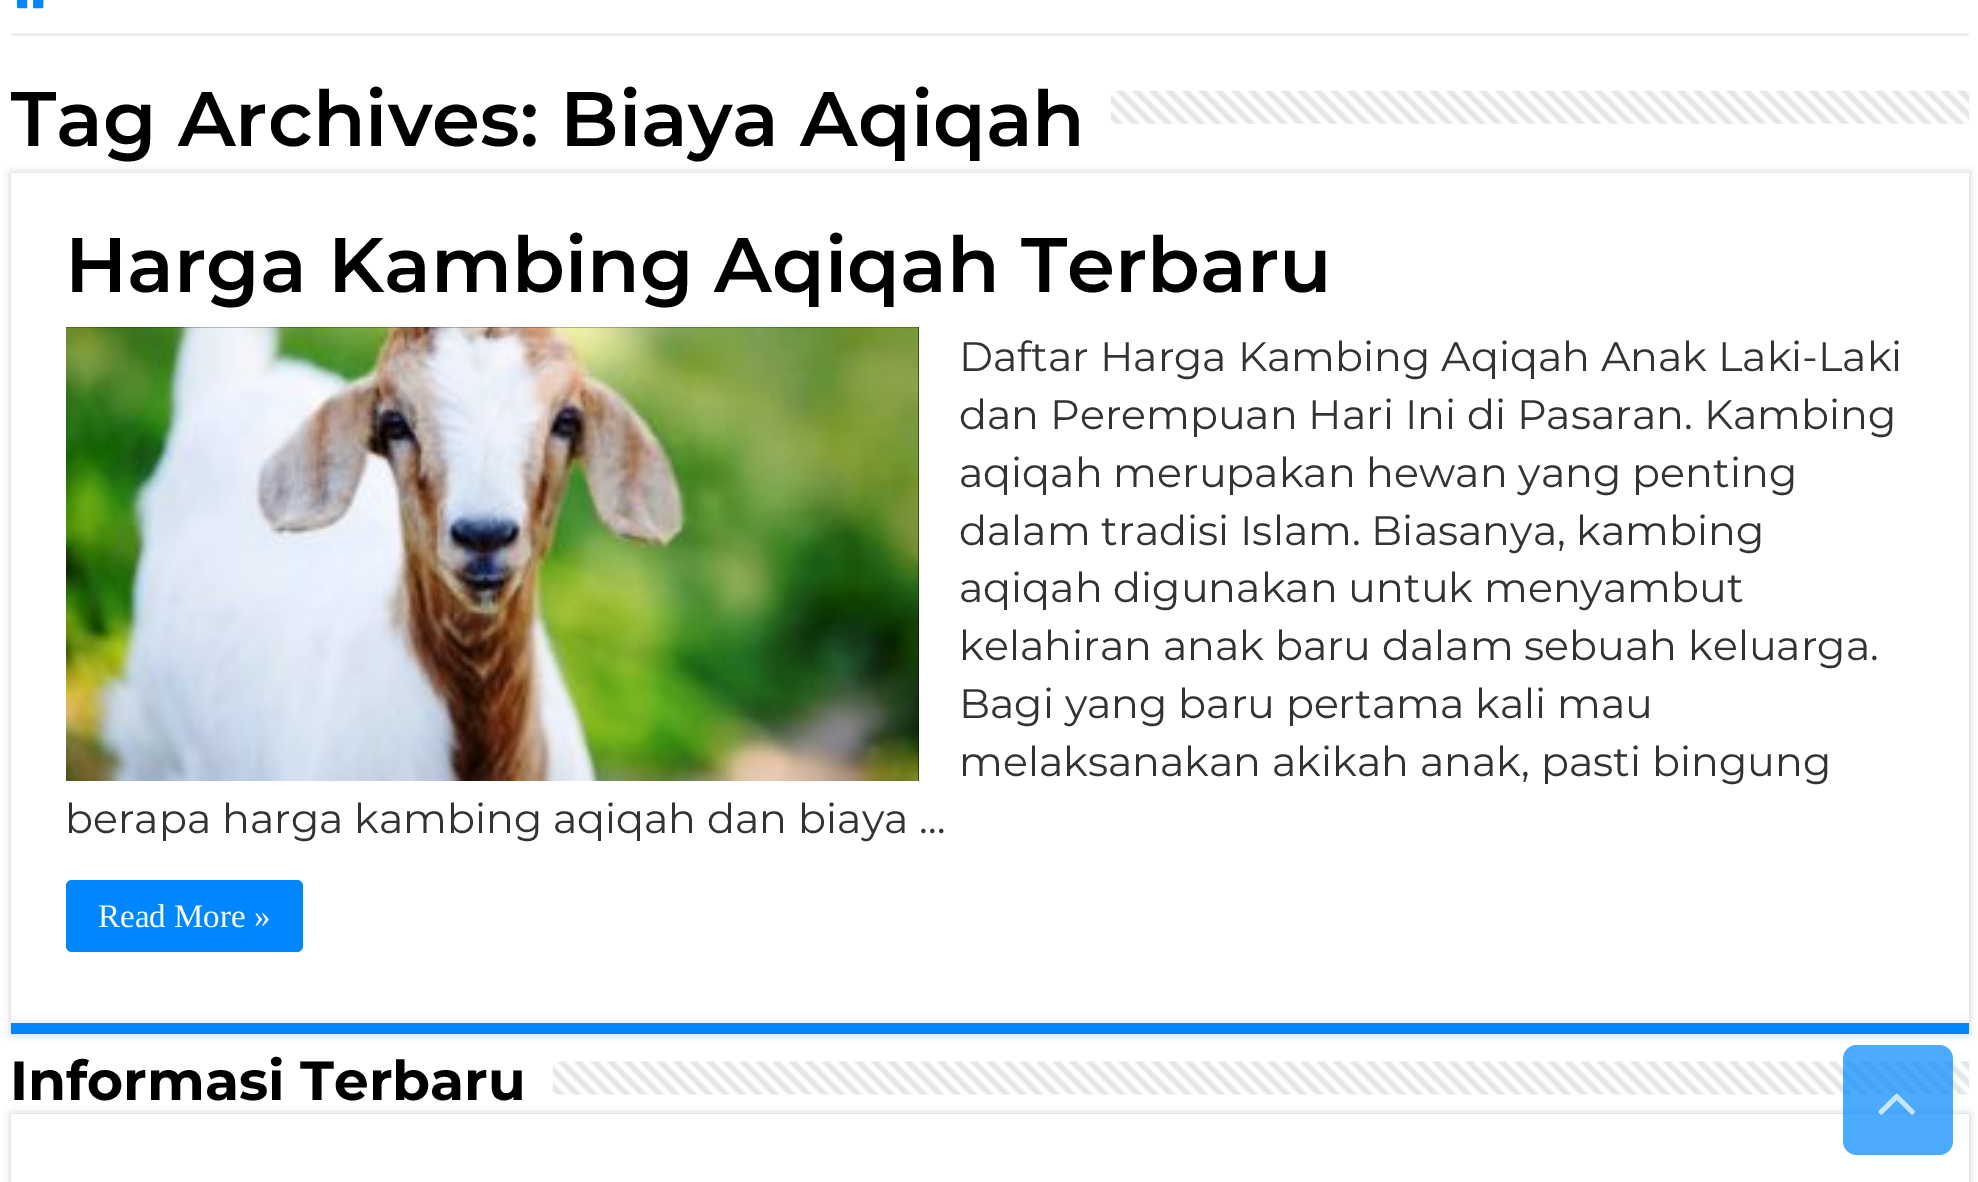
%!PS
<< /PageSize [1978 1182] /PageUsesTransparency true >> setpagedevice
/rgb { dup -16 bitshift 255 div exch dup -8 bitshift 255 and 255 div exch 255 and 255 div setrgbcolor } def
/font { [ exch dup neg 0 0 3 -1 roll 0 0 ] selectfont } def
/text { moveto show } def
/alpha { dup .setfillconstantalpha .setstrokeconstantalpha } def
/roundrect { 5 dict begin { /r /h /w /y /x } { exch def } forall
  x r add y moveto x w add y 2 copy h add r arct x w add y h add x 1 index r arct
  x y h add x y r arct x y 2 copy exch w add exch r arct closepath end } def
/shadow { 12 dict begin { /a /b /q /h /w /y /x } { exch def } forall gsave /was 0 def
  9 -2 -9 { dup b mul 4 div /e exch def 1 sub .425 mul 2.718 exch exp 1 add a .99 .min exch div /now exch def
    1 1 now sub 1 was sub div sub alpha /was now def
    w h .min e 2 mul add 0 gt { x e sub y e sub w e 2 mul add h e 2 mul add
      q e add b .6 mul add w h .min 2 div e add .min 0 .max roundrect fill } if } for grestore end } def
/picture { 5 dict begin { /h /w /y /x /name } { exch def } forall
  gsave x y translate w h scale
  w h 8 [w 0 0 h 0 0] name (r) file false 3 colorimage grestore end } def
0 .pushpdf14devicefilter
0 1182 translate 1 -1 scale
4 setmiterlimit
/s1 { /Montserrat-SemiBold 77 font 16#000000 rgb } def
/s2 { /Montserrat-Thin 41.25 font 16#333333 rgb } def
/s3 { /LiberationSerif-Regular 33 font 16#FFFFFF rgb } def
/s4 { /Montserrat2-Thin 55 font 16#000000 rgb } def
16#FFFFFF rgb
0 0 1978 1182 rectfill
16#EEEEEE rgb
11 33 1958 3 rectfill
(pic1.raw) 16 0 28 9 picture
16#CACACA rgb
11 173 1958 861 0 4 1 shadow
gsave
11 63 1958 110 rectclip
s1
(Tag Archives:) 10 146 text
grestore
s1
(Biaya Aqiqah) 560 146 text
(pic2.raw) 1111 90 858 34 picture
16#FFFFFF rgb
11 173 1958 847 rectfill
16#0087FE rgb
11 1023 1958 11 rectfill
16#F2F2F2 rgb
11 1020 1958 3 rectfill
s1
(Harga Kambing Aqiqah Terbaru) 65 292 text
66 327 853 454 rectfill
(pic3.raw) 66 327 853 454 picture
s2
(Daftar Harga Kambing Aqiqah Anak Laki-Laki) 959 371 text
(dan Perempuan Hari Ini di Pasaran. Kambing) 959 429 text
(aqiqah merupakan hewan yang penting) 959 487 text
(dalam tradisi Islam. Biasanya, kambing) 959 545 text
(aqiqah digunakan untuk menyambut) 959 602 text
(kelahiran anak baru dalam sebuah keluarga.) 959 660 text
(Bagi yang baru pertama kali mau) 959 718 text
(melaksanakan akikah anak, pasti bingung) 959 776 text
(berapa harga kambing aqiqah dan biaya …) 65 833 text
16#0087FE rgb
66 880 237 72 6 roundrect fill
s3
(Read More ») 98 927 text
s4
(Informasi Terbaru) 10 1100 text
(pic4.raw) 552 1061 1417 34 picture
gsave
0 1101 moveto 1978 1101 lineto 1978 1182 lineto 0 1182 lineto closepath 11 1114 moveto 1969 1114 lineto 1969 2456 lineto 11 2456 lineto closepath eoclip newpath
16#CACACA rgb
11 1114 1958 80 0 4 1 shadow
grestore
0.7 alpha
16#0087FE rgb
1843 1045 110 110 14 roundrect fill
1 alpha
(pic5.raw) 1878 1093 38 22 picture
.poppdf14devicefilter showpage
